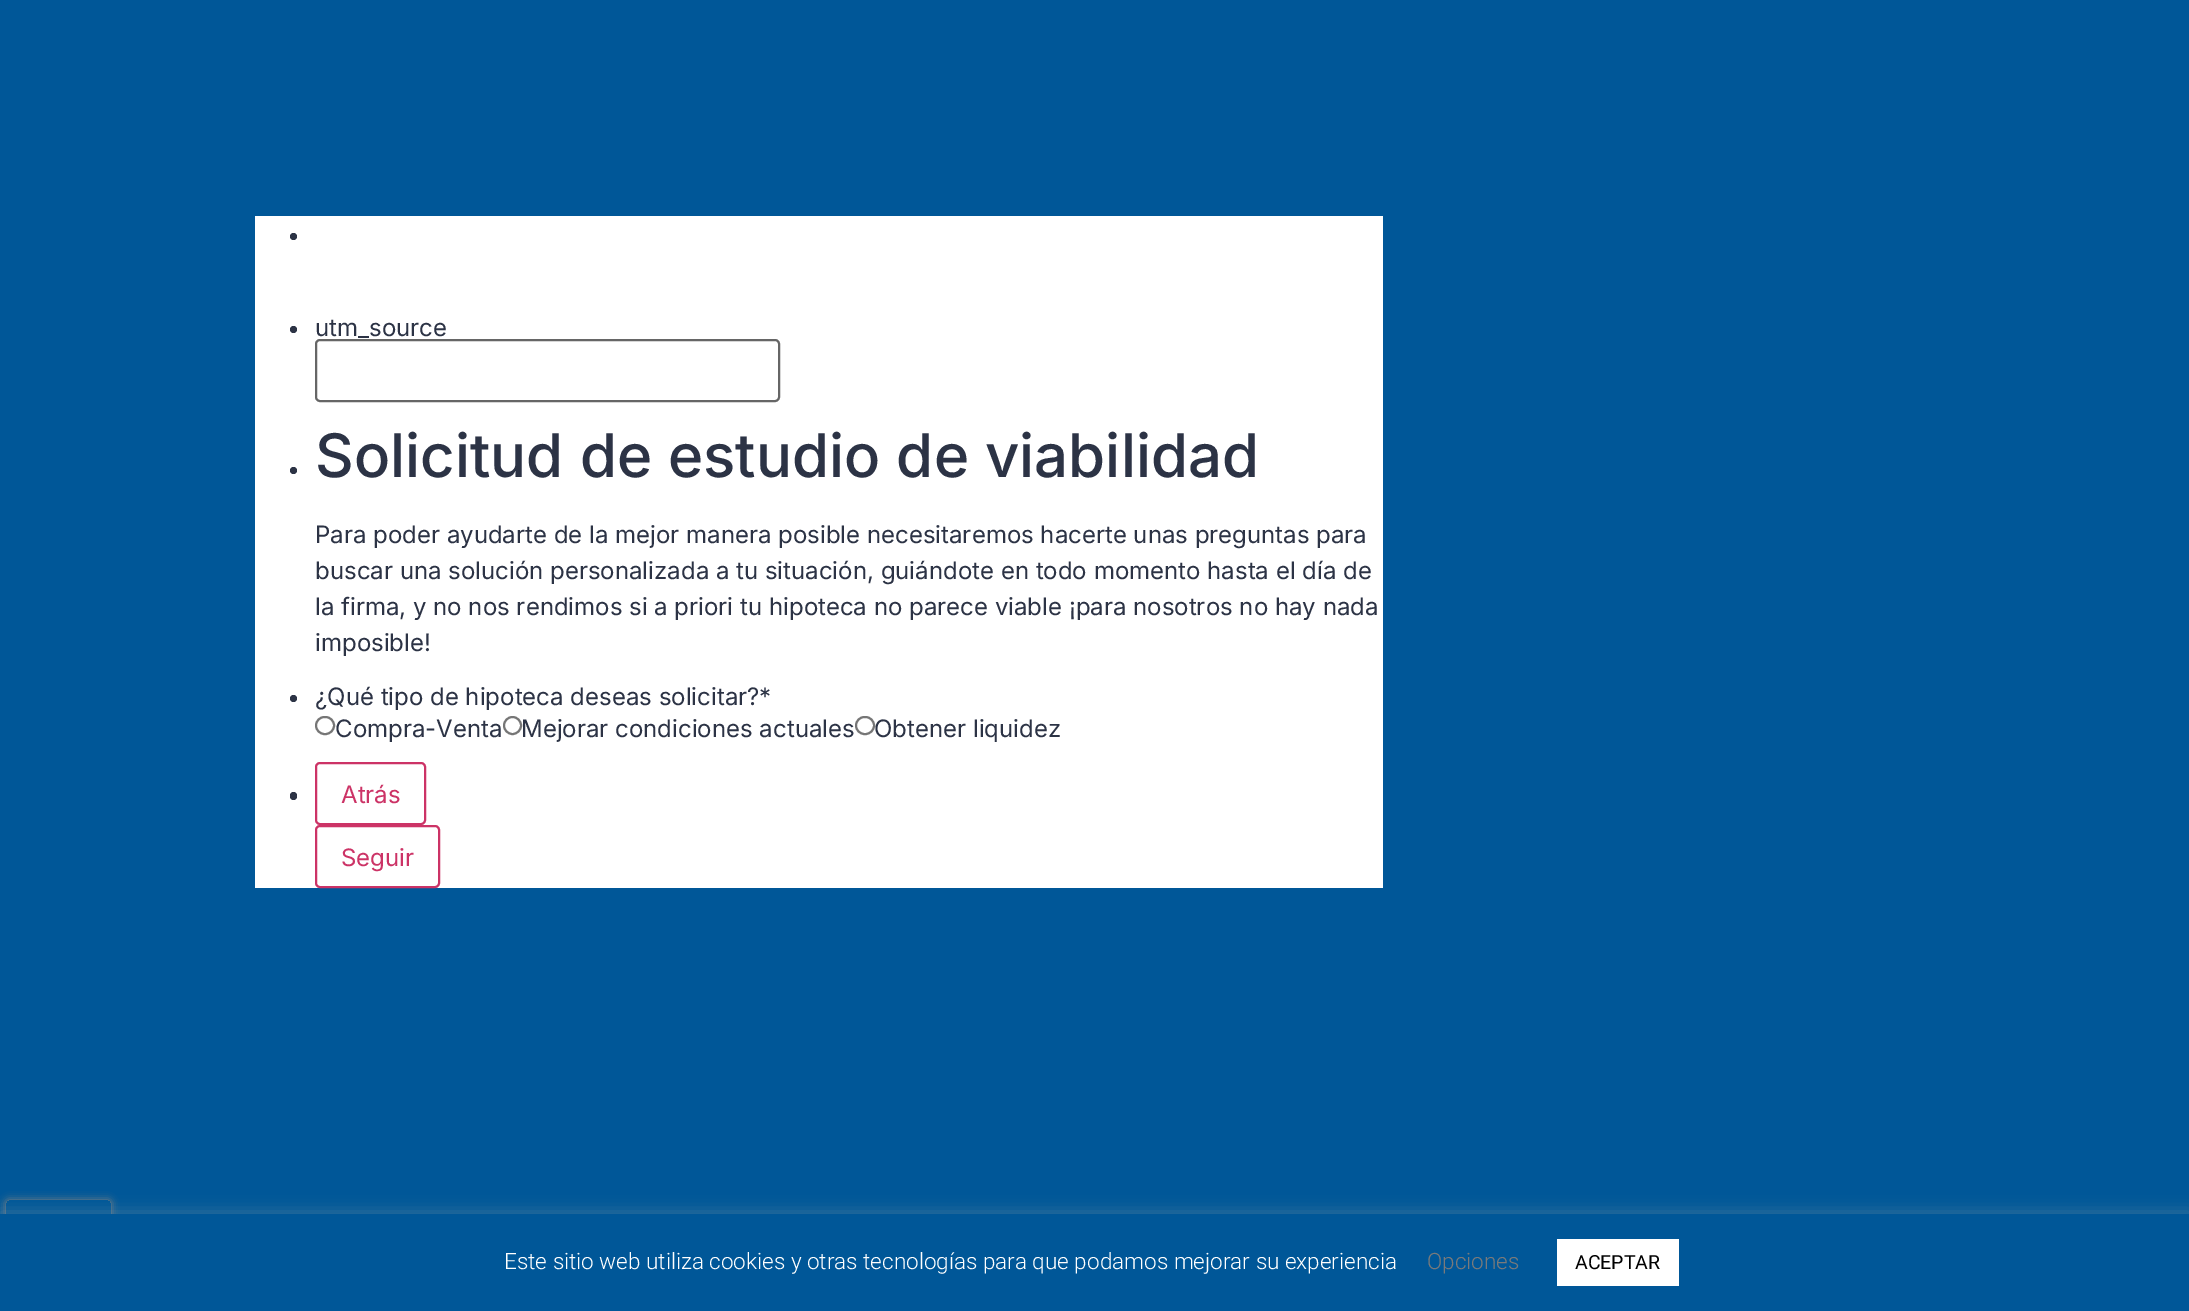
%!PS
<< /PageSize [2189 1311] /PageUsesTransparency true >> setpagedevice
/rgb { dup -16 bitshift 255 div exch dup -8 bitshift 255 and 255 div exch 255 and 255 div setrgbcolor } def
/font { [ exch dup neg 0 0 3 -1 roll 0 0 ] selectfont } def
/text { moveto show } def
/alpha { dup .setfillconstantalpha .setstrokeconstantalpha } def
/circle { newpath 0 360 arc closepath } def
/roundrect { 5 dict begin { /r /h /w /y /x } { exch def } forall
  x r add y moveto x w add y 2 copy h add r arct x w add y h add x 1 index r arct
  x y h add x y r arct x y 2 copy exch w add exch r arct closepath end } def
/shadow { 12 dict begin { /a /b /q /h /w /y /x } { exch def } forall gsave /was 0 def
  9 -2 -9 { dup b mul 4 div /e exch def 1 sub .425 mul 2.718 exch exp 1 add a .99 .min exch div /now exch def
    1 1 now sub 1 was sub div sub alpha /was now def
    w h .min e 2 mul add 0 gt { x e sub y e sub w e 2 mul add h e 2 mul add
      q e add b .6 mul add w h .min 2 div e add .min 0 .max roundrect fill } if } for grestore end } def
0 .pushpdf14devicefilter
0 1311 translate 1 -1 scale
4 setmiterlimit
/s1 { /Inter-Regular 24 font 16#2C3345 rgb } def
/s2 { /Inter-Medium 60 font 16#2C3345 rgb } def
/s3 { /Inter-Regular 24 font 16#CC3366 rgb } def
/s4 { /Roboto-Light 22.5 font 16#FFFFFF rgb } def
/s5 { /Roboto-Light 22.5 font 16#7A7A7A rgb } def
/s6 { /Roboto-Regular 19.5 font 16#000000 rgb } def
16#005798 rgb
0 0 2189 1311 rectfill
16#FFFFFF rgb
255 216 1128 672 rectfill
16#2C3345 rgb
293.5 236.5 3.5 circle fill
293.5 329.5 3.5 circle fill
s1
(utm_source) 315 336 text
16#666666 rgb
2 setlinewidth
316 340 463 61 4 roundrect stroke
16#2C3345 rgb
293.5 470.5 3.5 circle fill
s2
(Solicitud de estudio de viabilidad) 315 477 text
s1
(Para poder ayudarte de la mejor manera posible necesitaremos hacerte unas preguntas para) 315 543 text
(buscar una solución personalizada a tu situación, guiándote en todo momento hasta el día de) 315 579 text
(la firma, y no nos rendimos si a priori tu hipoteca no parece viable ¡para nosotros no hay nada) 315 615 text
(imposible!) 315 651 text
293.5 698.5 3.5 circle fill
(¿Qué tipo de hipoteca deseas solicitar?*) 315 705 text
16#767676 rgb
316 717 18 17 8.5 roundrect stroke
s1
(Compra-Venta) 335 737 text
16#767676 rgb
512.5 725.5 8.5 circle stroke
s1
(Mejorar condiciones actuales) 521 737 text
16#767676 rgb
856 717 18 17 8.5 roundrect stroke
s1
(Obtener liquidez) 874 737 text
290 792 7 8 3.5 roundrect fill
16#CC3366 rgb
316 763 109 61 4 roundrect stroke
(Atrás) 341 803 text
316 826 123 61 4 roundrect stroke
(Seguir) 341 866 text
gsave
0 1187 moveto 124 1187 lineto 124 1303 lineto 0 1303 lineto closepath 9 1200 moveto 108 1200 lineto 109.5 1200 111 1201.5 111 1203 curveto 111 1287 lineto 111 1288.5 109.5 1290 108 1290 curveto 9 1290 lineto 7.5 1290 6 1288.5 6 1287 curveto 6 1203 lineto 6 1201.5 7.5 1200 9 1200 curveto closepath eoclip newpath
16#808080 rgb
6 1200 105 90 3 4 1 shadow
grestore
16#ACABAB rgb
0 1212 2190 98 0 7.5 0.3 shadow
16#005798 rgb
0 1214 2189 97 rectfill
s4
(Este sitio web utiliza cookies y otras tecnologías para que podamos mejorar su experiencia) 504 1269 text
s5
(Opciones) 1427 1269 text
16#FFFFFF rgb
1557 1239 122 47 rectfill
s6
(ACEPTAR) 1575 1269 text
.poppdf14devicefilter showpage
